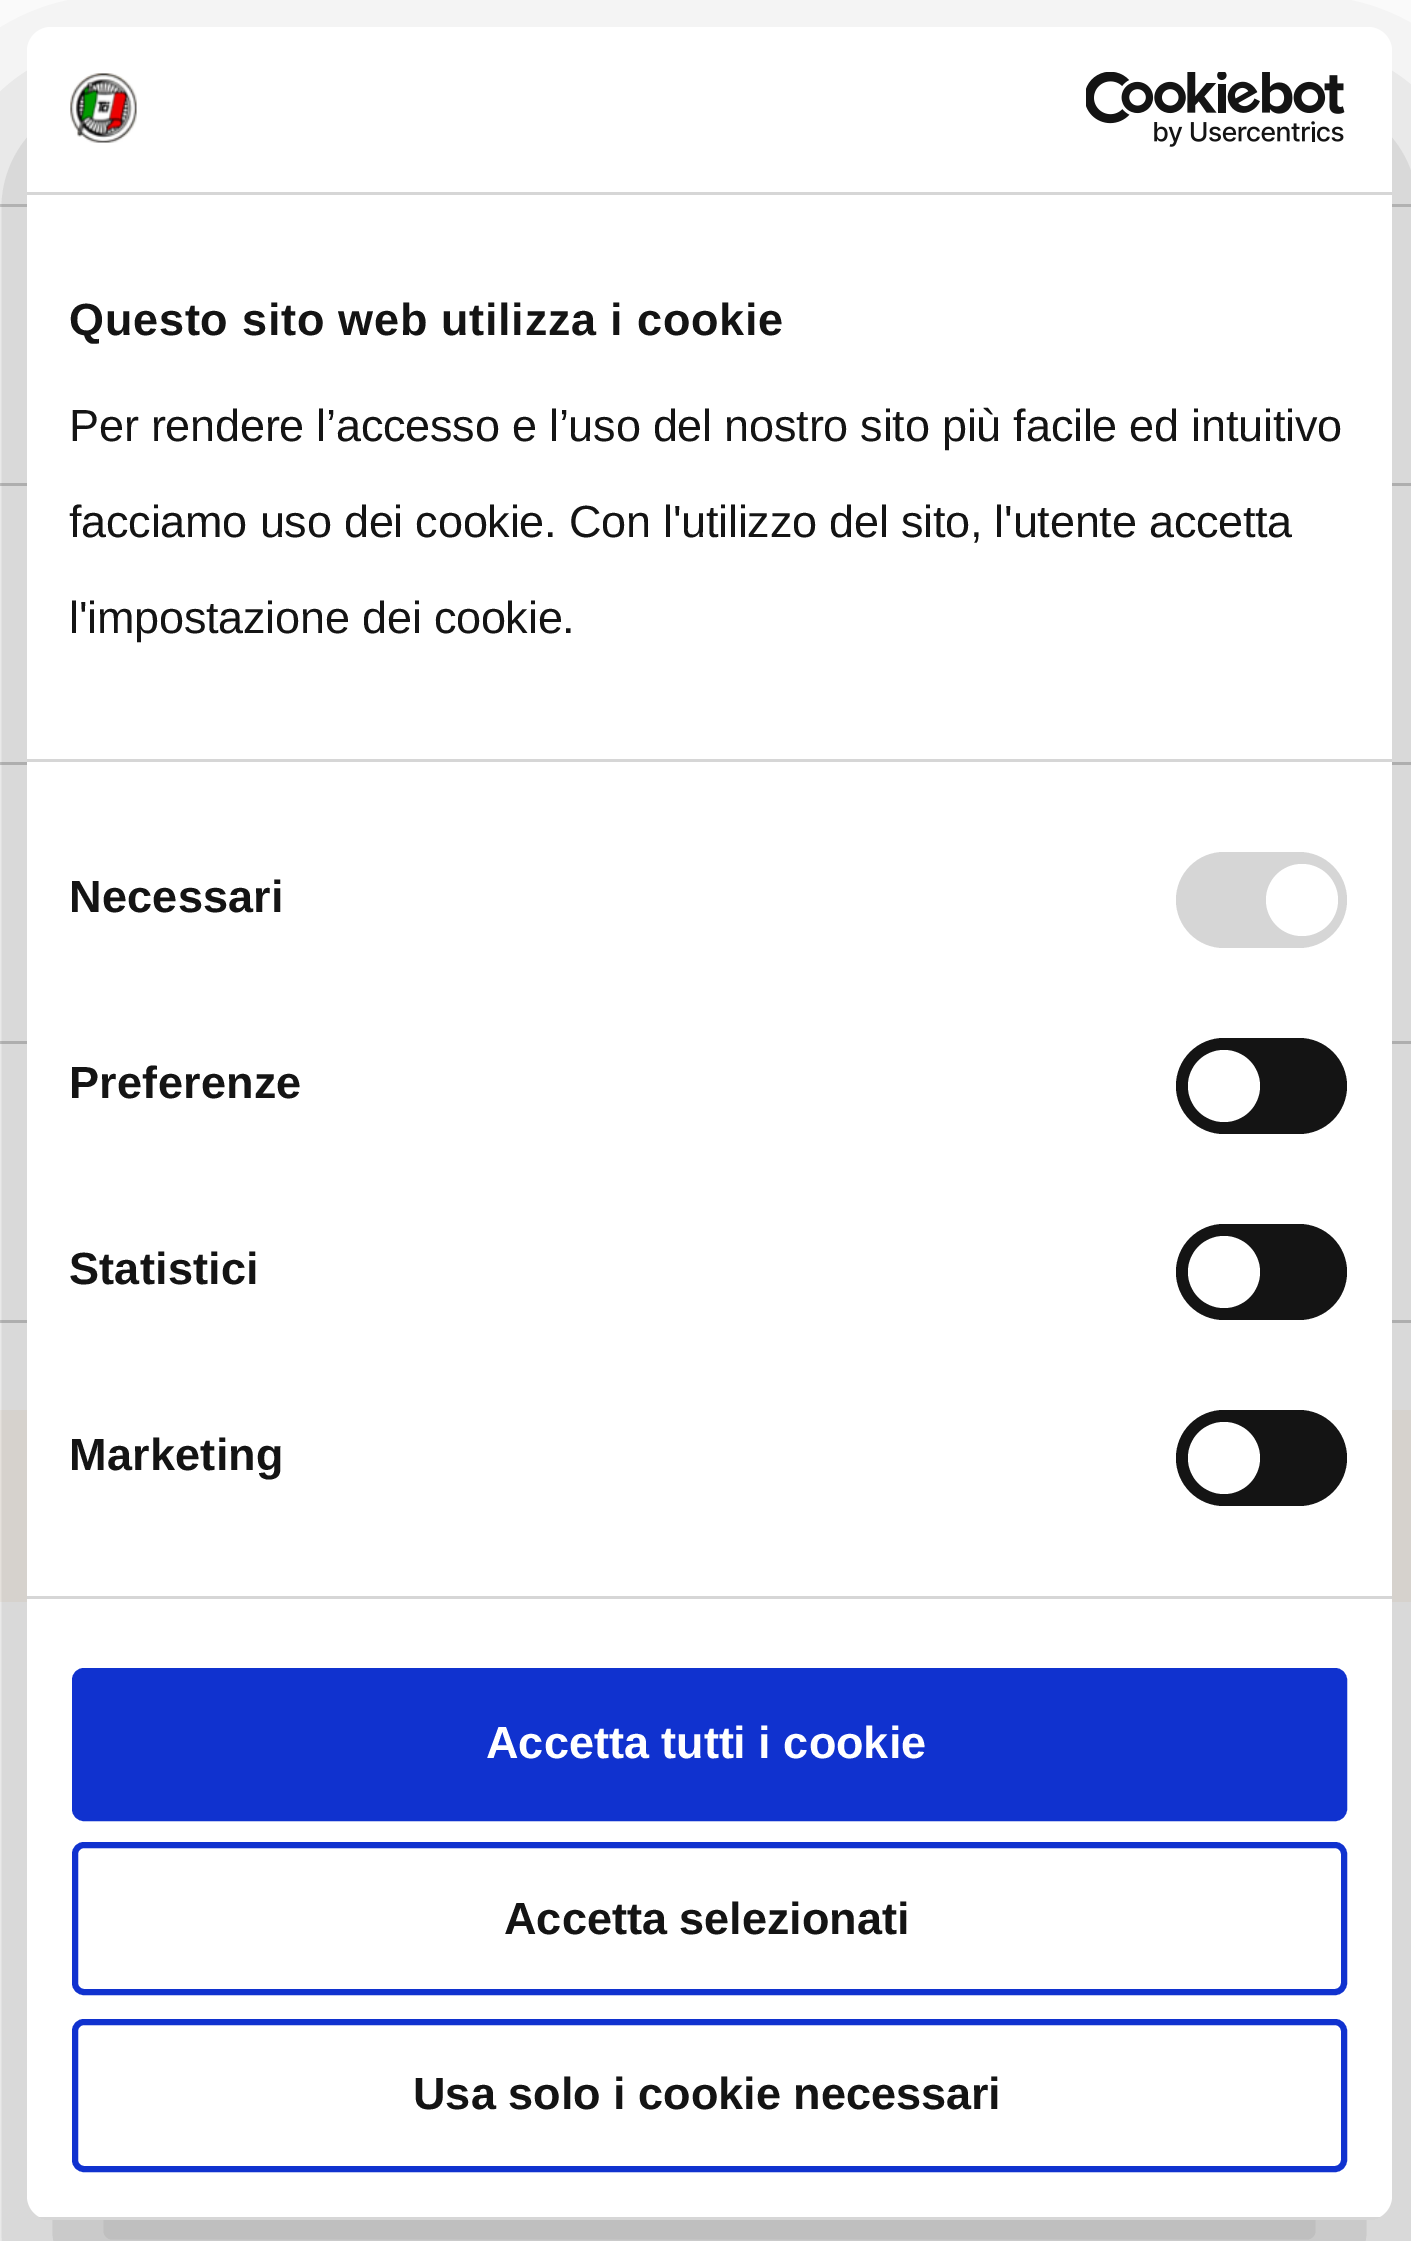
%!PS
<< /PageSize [1411 2241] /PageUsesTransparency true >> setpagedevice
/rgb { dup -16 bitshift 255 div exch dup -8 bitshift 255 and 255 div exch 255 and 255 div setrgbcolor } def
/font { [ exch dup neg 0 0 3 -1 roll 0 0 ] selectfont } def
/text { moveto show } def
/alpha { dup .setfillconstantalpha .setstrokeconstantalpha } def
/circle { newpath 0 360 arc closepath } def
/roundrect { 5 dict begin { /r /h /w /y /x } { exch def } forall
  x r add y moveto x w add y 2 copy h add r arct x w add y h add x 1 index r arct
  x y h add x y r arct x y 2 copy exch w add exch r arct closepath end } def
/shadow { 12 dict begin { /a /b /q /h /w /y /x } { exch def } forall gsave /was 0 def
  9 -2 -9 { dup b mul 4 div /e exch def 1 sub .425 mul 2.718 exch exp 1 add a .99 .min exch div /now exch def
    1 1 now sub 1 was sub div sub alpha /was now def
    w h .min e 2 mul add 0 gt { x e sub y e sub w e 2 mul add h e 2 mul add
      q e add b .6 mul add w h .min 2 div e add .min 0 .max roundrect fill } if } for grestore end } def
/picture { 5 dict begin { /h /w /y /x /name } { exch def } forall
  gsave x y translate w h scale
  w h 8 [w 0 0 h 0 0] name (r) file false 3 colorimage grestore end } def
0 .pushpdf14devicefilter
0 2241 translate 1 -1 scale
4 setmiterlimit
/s1 { /LiberationSans-Bold 45 font 16#FFFFFF rgb } def
/s2 { /LiberationSans-Bold 45 font 16#141414 rgb } def
16#FFFFFF rgb
0 0 1411 2241 rectfill
16#D0D0D0 rgb
0 204 1411 3 rectfill
16#CCCCCC rgb
0 483 1411 3 rectfill
0 762 1411 3 rectfill
0 1041 1411 3 rectfill
0 1320 1411 3 rectfill
16#FBF7F2 rgb
0 1410 1411 192 rectfill
gsave
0 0 moveto 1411 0 lineto 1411 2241 lineto 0 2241 lineto closepath 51 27 moveto 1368 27 lineto 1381.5 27 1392 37.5 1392 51 curveto 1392 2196 lineto 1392 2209.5 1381.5 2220 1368 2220 curveto 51 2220 lineto 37.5 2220 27 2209.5 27 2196 curveto 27 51 lineto 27 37.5 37.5 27 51 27 curveto closepath eoclip newpath
16#000000 rgb
27 123 1365 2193 24 102 0.3 shadow
grestore
16#FFFFFF rgb
27 27 1365 2193 24 roundrect fill
16#D6D6D6 rgb
27 192 1365 3 rectfill
(pic1.raw) 70 73 67 70 picture
(pic2.raw) 1086 72 259 75 picture
27 759 1365 3 rectfill
/LiberationSans-Bold 45 font
16#141414 rgb
69 335 moveto 0.75 0 (Questo sito web utilizza i cookie) ashow
/LiberationSans-Regular 45 font
69 441 moveto -0.22 0 (Per rendere l’accesso e l’uso del nostro sito più facile ed intuitivo) ashow
69 537 moveto -0.22 0 (facciamo uso dei cookie. Con l'utilizzo del sito, l'utente accetta) ashow
69 633 moveto -0.22 0 (l'impostazione dei cookie.) ashow
16#D6D6D6 rgb
27 1596 1365 3 rectfill
/LiberationSans-Bold 45 font
16#141414 rgb
69 912 moveto 0.25 0 (Necessari) ashow
16#D6D6D6 rgb
1176 852 171 96 48 roundrect fill
16#FFFFFF rgb
1302 900 36 circle fill
16#141414 rgb
69 1098 moveto 0.25 0 (Preferenze) ashow
1176 1038 171 96 48 roundrect fill
16#FFFFFF rgb
1224 1086 36 circle fill
16#141414 rgb
69 1284 moveto 0.25 0 (Statistici) ashow
1176 1224 171 96 48 roundrect fill
16#FFFFFF rgb
1224 1272 36 circle fill
16#141414 rgb
69 1470 moveto 0.25 0 (Marketing) ashow
1176 1410 171 96 48 roundrect fill
16#FFFFFF rgb
1224 1458 36 circle fill
gsave
27 27 1365 2193 24 roundrect clip newpath
16#D6D6D6 rgb
39 2217 1341 3 rectfill
grestore
16#1032CF rgb
75 1671 1269 147 9 roundrect gsave fill grestore
6 setlinewidth
stroke
s1
(Accetta tutti i cookie) 486 1758 text
16#1032CF rgb
75 1845 1269 147 9 roundrect stroke
s2
(Accetta selezionati) 504 1934 text
16#1032CF rgb
75 2022 1269 147 9 roundrect stroke
s2
(Usa solo i cookie necessari) 413 2109 text
.poppdf14devicefilter showpage
